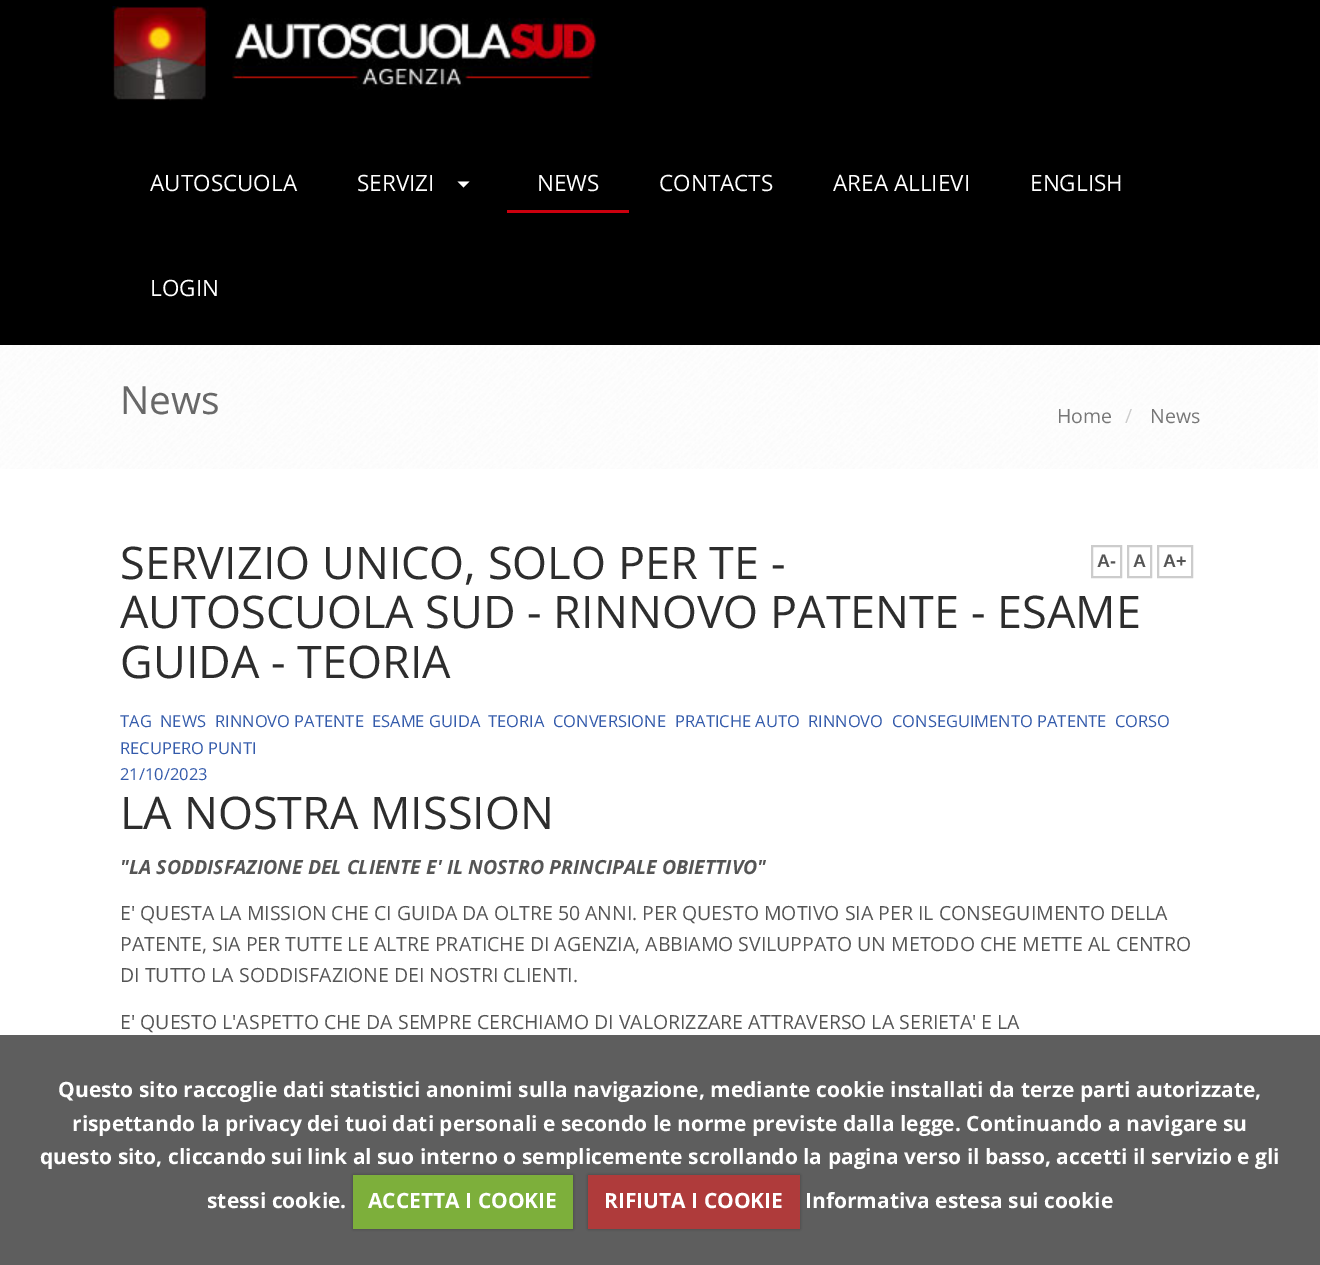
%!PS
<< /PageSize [1320 1265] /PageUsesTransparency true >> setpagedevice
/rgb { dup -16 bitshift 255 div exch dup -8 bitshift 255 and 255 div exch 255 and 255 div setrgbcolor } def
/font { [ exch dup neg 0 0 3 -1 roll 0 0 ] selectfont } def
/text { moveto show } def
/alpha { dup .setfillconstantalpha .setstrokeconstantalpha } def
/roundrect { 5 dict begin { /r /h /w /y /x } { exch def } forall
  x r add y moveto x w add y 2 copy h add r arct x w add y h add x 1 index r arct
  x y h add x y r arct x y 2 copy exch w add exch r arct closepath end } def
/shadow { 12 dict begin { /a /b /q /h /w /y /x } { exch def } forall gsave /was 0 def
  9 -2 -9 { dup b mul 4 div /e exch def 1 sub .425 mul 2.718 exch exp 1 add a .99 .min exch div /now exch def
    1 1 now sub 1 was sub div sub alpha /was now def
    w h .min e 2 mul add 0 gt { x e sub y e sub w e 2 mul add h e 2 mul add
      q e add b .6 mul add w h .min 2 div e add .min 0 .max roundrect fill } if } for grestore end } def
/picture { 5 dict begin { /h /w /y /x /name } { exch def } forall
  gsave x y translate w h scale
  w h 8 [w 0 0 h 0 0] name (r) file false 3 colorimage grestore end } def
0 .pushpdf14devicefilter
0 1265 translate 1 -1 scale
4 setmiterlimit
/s1 { /OpenSans-Regular 22.5 font 16#FFFFFF rgb } def
/s2 { /OpenSans-Regular 39 font 16#686868 rgb } def
/s3 { /OpenSans-Regular 19.5 font 16#777777 rgb } def
/s4 { /OpenSans-Regular 19.5 font 16#CCCCCC rgb } def
/s5 { /OpenSans-Regular 45 font 16#2D2D2D rgb } def
/s6 { /LiberationSans-Bold 18 font 16#555555 rgb } def
/s7 { /OpenSans-Regular 16.5 font 16#345BAB rgb } def
/s8 { /OpenSans-BoldItalic 19.5 font 16#555555 rgb } def
/s9 { /OpenSans-Regular 19.5 font 16#555555 rgb } def
/s10 { /OpenSans-Bold 21 font 16#FFFFFF rgb } def
16#FFFFFF rgb
0 0 1320 1265 rectfill
16#5E5E5E rgb
0 1035 1320 230 rectfill
16#000000 rgb
0 0 1320 345 rectfill
(pic1.raw) 112 6 485 95 picture
s1
(AUTOSCUOLA) 150 191 text
(SERVIZI) 357 191 text
457.5 181.5 moveto 469.5 181.5 lineto 463.5 187.5 lineto closepath fill
16#CB000E rgb
507 210 122 3 rectfill
s1
(NEWS) 537 191 text
(CONTACTS) 659 191 text
(AREA ALLIEVI) 833 191 text
(ENGLISH) 1030 191 text
(LOGIN) 150 296 text
(pic2.raw) 0 345 1318 124 picture
s2
(News) 120 414 text
s3
(Home) 1057 423 text
s4
(/) 1125 423 text
s3
(News) 1150 423 text
s5
(SERVIZIO UNICO, SOLO PER TE -) 120 579 text
(AUTOSCUOLA SUD - RINNOVO PATENTE - ESAME) 120 628 text
(GUIDA - TEORIA) 120 678 text
16#CCCCCC rgb
2 setlinewidth
1092 546 29 31 rectstroke
s6
(A-) 1097 567 text
16#CCCCCC rgb
1128 546 23 31 rectstroke
s6
(A) 1133 567 text
16#CCCCCC rgb
1158 546 34 31 rectstroke
s6
(A+) 1163 567 text
s7
(TAG) 120 727 text
(NEWS) 160 727 text
(RINNOVO PATENTE) 215 727 text
(ESAME GUIDA) 372 727 text
(TEORIA) 488 727 text
(CONVERSIONE) 553 727 text
(PRATICHE AUTO) 675 727 text
(RINNOVO) 808 727 text
(CONSEGUIMENTO PATENTE) 892 727 text
(CORSO) 1115 727 text
(RECUPERO PUNTI) 120 754 text
(21/10/2023) 120 780 text
s5
(LA NOSTRA MISSION) 120 829 text
s8
("LA SODDISFAZIONE DEL CLIENTE E' IL NOSTRO PRINCIPALE OBIETTIVO") 120 874 text
s9
(E' QUESTA LA MISSION CHE CI GUIDA DA OLTRE 50 ANNI. PER QUESTO MOTIVO SIA PER IL CONSEGUIMENTO DELLA) 120 920 text
(PATENTE, SIA PER TUTTE LE ALTRE PRATICHE DI AGENZIA, ABBIAMO SVILUPPATO UN METODO CHE METTE AL CENTRO) 120 951 text
(DI TUTTO LA SODDISFAZIONE DEI NOSTRI CLIENTI.) 120 982 text
(E' QUESTO L'ASPETTO CHE DA SEMPRE CERCHIAMO DI VALORIZZARE ATTRAVERSO LA SERIETA' E LA) 120 1029 text
s10
(Questo sito raccoglie dati statistici anonimi sulla navigazione, mediante cookie installati da terze parti autorizzate,) 58 1097 text
(rispettando la privacy dei tuoi dati personali e secondo le norme previste dalla legge. Continuando a navigare su) 72 1131 text
(questo sito, cliccando sui link al suo interno o semplicemente scrollando la pagina verso il basso, accetti il servizio e gli) 40 1164 text
(stessi cookie.) 207 1208 text
16#000000 rgb
353 1175 220 54 0 1.5 0.25 shadow
16#7DAF3B rgb
353 1175 220 54 rectfill
s10
(ACCETTA I COOKIE) 368 1208 text
16#000000 rgb
588 1175 212 54 0 1.5 0.25 shadow
16#AF3B3B rgb
588 1175 212 54 rectfill
s10
(RIFIUTA I COOKIE) 604 1208 text
(Informativa estesa sui cookie) 805 1208 text
.poppdf14devicefilter showpage
